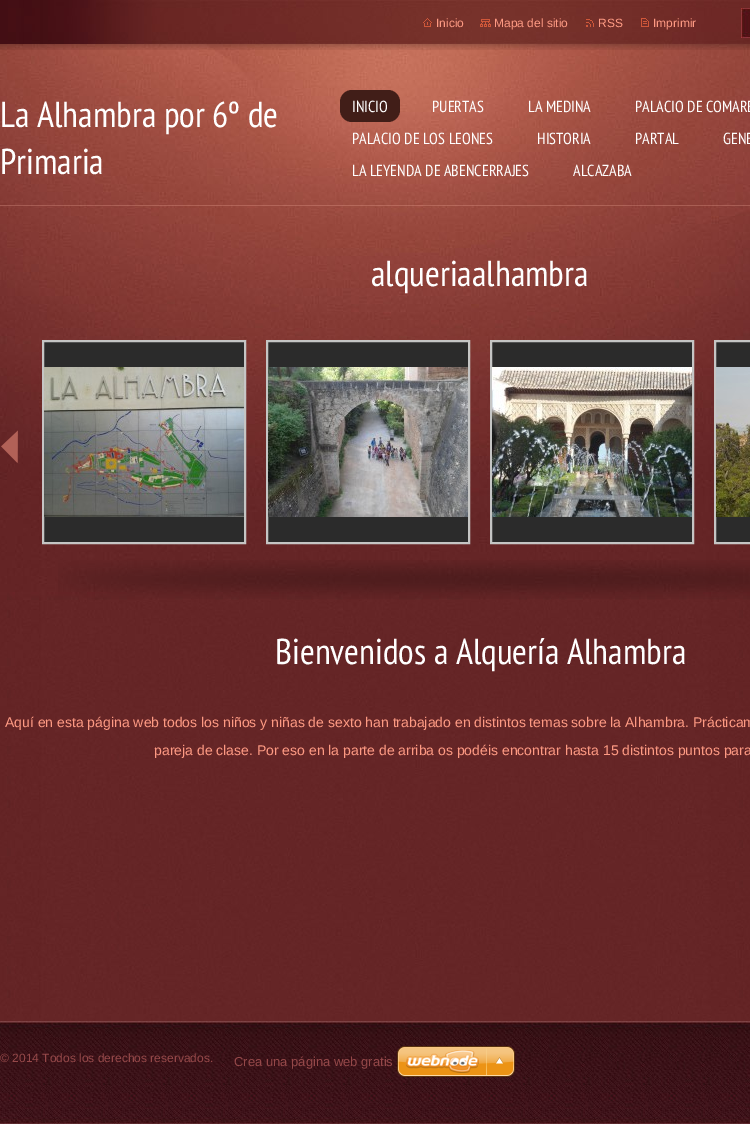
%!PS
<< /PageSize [750 1124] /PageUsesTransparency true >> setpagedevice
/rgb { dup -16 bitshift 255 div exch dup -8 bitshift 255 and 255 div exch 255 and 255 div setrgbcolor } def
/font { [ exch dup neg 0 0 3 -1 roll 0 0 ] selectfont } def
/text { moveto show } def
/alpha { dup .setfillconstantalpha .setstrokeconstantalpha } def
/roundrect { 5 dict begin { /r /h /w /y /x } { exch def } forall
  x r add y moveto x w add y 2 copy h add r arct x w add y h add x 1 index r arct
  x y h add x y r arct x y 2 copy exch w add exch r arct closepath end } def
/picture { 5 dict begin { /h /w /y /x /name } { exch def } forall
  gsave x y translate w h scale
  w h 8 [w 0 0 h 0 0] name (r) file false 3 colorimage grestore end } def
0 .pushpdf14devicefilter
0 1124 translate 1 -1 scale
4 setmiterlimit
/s1 { /LiberationSans-Regular 12 font 16#FE9A83 rgb } def
/s2 { /PTSansNarrow-Regular 36 font 16#FFFFFF rgb } def
/s3 { /PTSansNarrow-Regular 16 font 16#FFFFFF rgb } def
/s4 { /LiberationSans-Regular 14 font 16#FE9A83 rgb } def
/s5 { /LiberationSans-Regular 12 font 16#954849 rgb } def
/s6 { /LiberationSans-Regular 13 font 16#954849 rgb } def
16#FFFFFF rgb
0 0 750 1124 rectfill
(pic1.raw) 0 600 750 421 picture
(pic2.raw) 0 44 750 556 picture
0.26 alpha
16#FBB6A6 rgb
0 205 750 1 rectfill
1 alpha
(pic3.raw) 0 44 750 6 picture
(pic4.raw) 0 0 750 44 picture
(pic5.raw) 423 18 9 9 picture
s1
(Inicio) 436 27 text
(pic6.raw) 480 19 11 8 picture
(Mapa del sitio) 494 27 text
(pic7.raw) 586 19 8 8 picture
(RSS) 598 27 text
(pic8.raw) 641 18 8 9 picture
(Imprimir) 653 27 text
(pic9.raw) 741 8 9 30 picture
s2
(La Alhambra por 6º de) 0 127 text
(Primaria) 0 174 text
16#411E18 rgb
340 90 60 32 12 roundrect fill
s3
(INICIO) 352 112 text
(PUERTAS) 432 112 text
(LA MEDINA) 528 112 text
(PALACIO DE COMARE) 635 112 text
(PALACIO DE LOS LEONES) 352 144 text
(HISTORIA) 537 144 text
(PARTAL) 635 144 text
(GENE) 723 144 text
(LA LEYENDA DE ABENCERRAJES) 352 176 text
(ALCAZABA) 573 176 text
s2
(alqueriaalhambra) 371 286 text
(pic10.raw) 58 560 692 39 picture
(pic11.raw) 1 430 17 33 picture
16#2B2B2B rgb
43 341 moveto 245 341 lineto 245 543 lineto 43 543 lineto closepath gsave fill grestore
16#C5C5C4 rgb
2 setlinewidth
stroke
(pic12.raw) 44 367 200 150 picture
16#2B2B2B rgb
267 341 moveto 469 341 lineto 469 543 lineto 267 543 lineto closepath gsave fill grestore
16#C5C5C4 rgb
stroke
(pic13.raw) 268 367 200 150 picture
16#2B2B2B rgb
491 341 moveto 693 341 lineto 693 543 lineto 491 543 lineto closepath gsave fill grestore
16#C5C5C4 rgb
stroke
(pic14.raw) 492 367 200 150 picture
16#2B2B2B rgb
715 341 moveto 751 341 lineto 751 543 lineto 715 543 lineto closepath gsave fill grestore
16#C5C5C4 rgb
stroke
(pic15.raw) 716 367 34 150 picture
s2
(Bienvenidos a Alquería Alhambra) 275 664 text
s4
(Aquí en esta página web todos los niños y niñas de sexto han trabajado en distintos temas sobre la Alhambra. Prácticam) 5 727 text
(pareja de clase. Por eso en la parte de arriba os podéis encontrar hasta 15 distintos puntos para) 154 755 text
(pic16.raw) 0 1021 750 103 picture
s5
(© 2014 Todos los derechos reservados.) 0 1062 text
s6
(Crea una página web gratis) 234 1066 text
(pic17.raw) 397 1046 118 31 picture
.poppdf14devicefilter showpage
